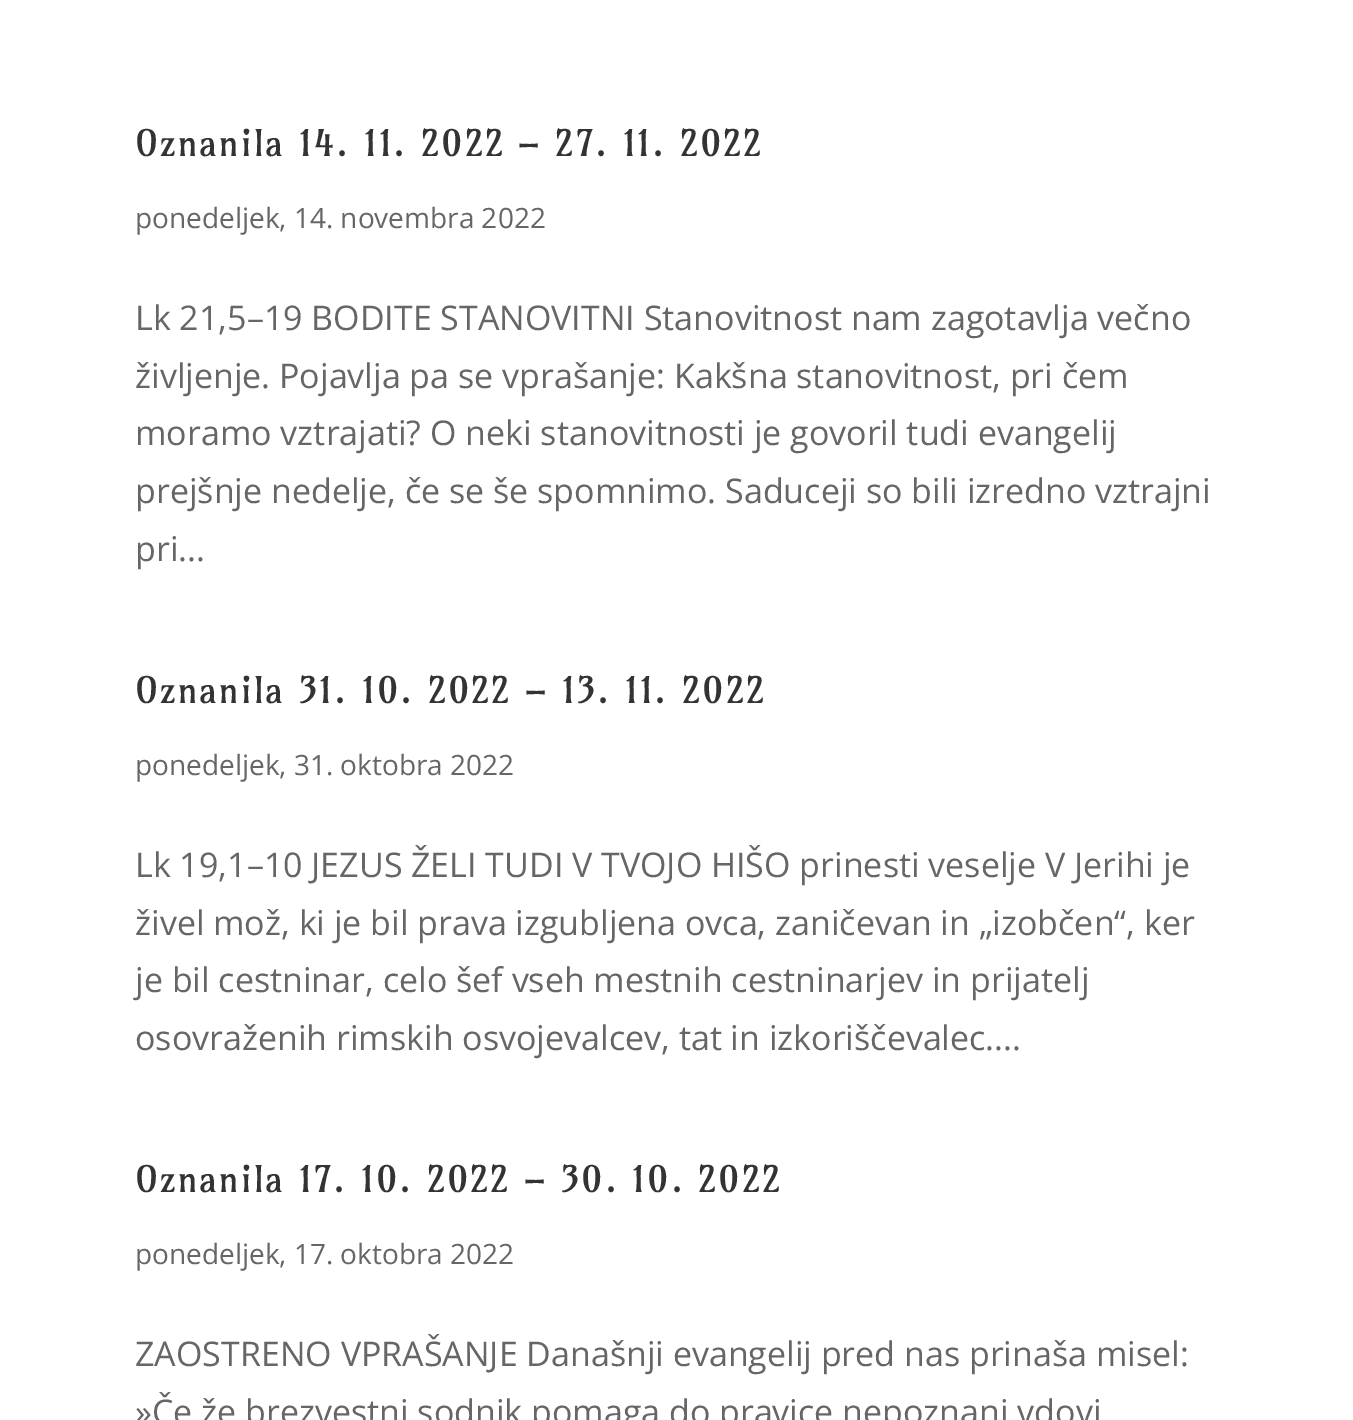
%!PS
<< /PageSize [1353 1420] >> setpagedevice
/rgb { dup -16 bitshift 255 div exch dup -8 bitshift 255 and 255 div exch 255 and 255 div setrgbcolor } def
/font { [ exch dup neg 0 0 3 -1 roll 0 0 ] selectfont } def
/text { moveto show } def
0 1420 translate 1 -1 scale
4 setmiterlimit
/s1 { /OpenSans-Regular 28 font 16#666666 rgb } def
/s2 { /OpenSans-Regular 34 font 16#666666 rgb } def
16#FFFFFF rgb
0 0 1353 1420 rectfill
/Amarante-Regular 36 font
16#333333 rgb
135 156 moveto 2 0 (Oznanila 14. 11. 2022 – 27. 11. 2022) ashow
s1
(ponedeljek, 14. novembra 2022) 135 228 text
s2
(Lk 21,5–19 BODITE STANOVITNI Stanovitnost nam zagotavlja večno) 135 330 text
(življenje. Pojavlja pa se vprašanje: Kakšna stanovitnost, pri čem) 135 388 text
(moramo vztrajati? O neki stanovitnosti je govoril tudi evangelij) 135 445 text
(prejšnje nedelje, če se še spomnimo. Saduceji so bili izredno vztrajni) 135 503 text
(pri...) 135 561 text
/Amarante-Regular 36 font
16#333333 rgb
135 703 moveto 2 0 (Oznanila 31. 10. 2022 – 13. 11. 2022) ashow
s1
(ponedeljek, 31. oktobra 2022) 135 775 text
s2
(Lk 19,1–10 JEZUS ŽELI TUDI V TVOJO HIŠO prinesti veselje V Jerihi je) 135 877 text
(živel mož, ki je bil prava izgubljena ovca, zaničevan in „izobčen“, ker) 135 935 text
(je bil cestninar, celo šef vseh mestnih cestninarjev in prijatelj) 135 992 text
(osovraženih rimskih osvojevalcev, tat in izkoriščevalec....) 135 1050 text
/Amarante-Regular 36 font
16#333333 rgb
135 1192 moveto 2 0 (Oznanila 17. 10. 2022 – 30. 10. 2022) ashow
s1
(ponedeljek, 17. oktobra 2022) 135 1264 text
s2
(ZAOSTRENO VPRAŠANJE Današnji evangelij pred nas prinaša misel:) 135 1366 text
(»Če že brezvestni sodnik pomaga do pravice nepoznani vdovi) 135 1424 text
showpage
